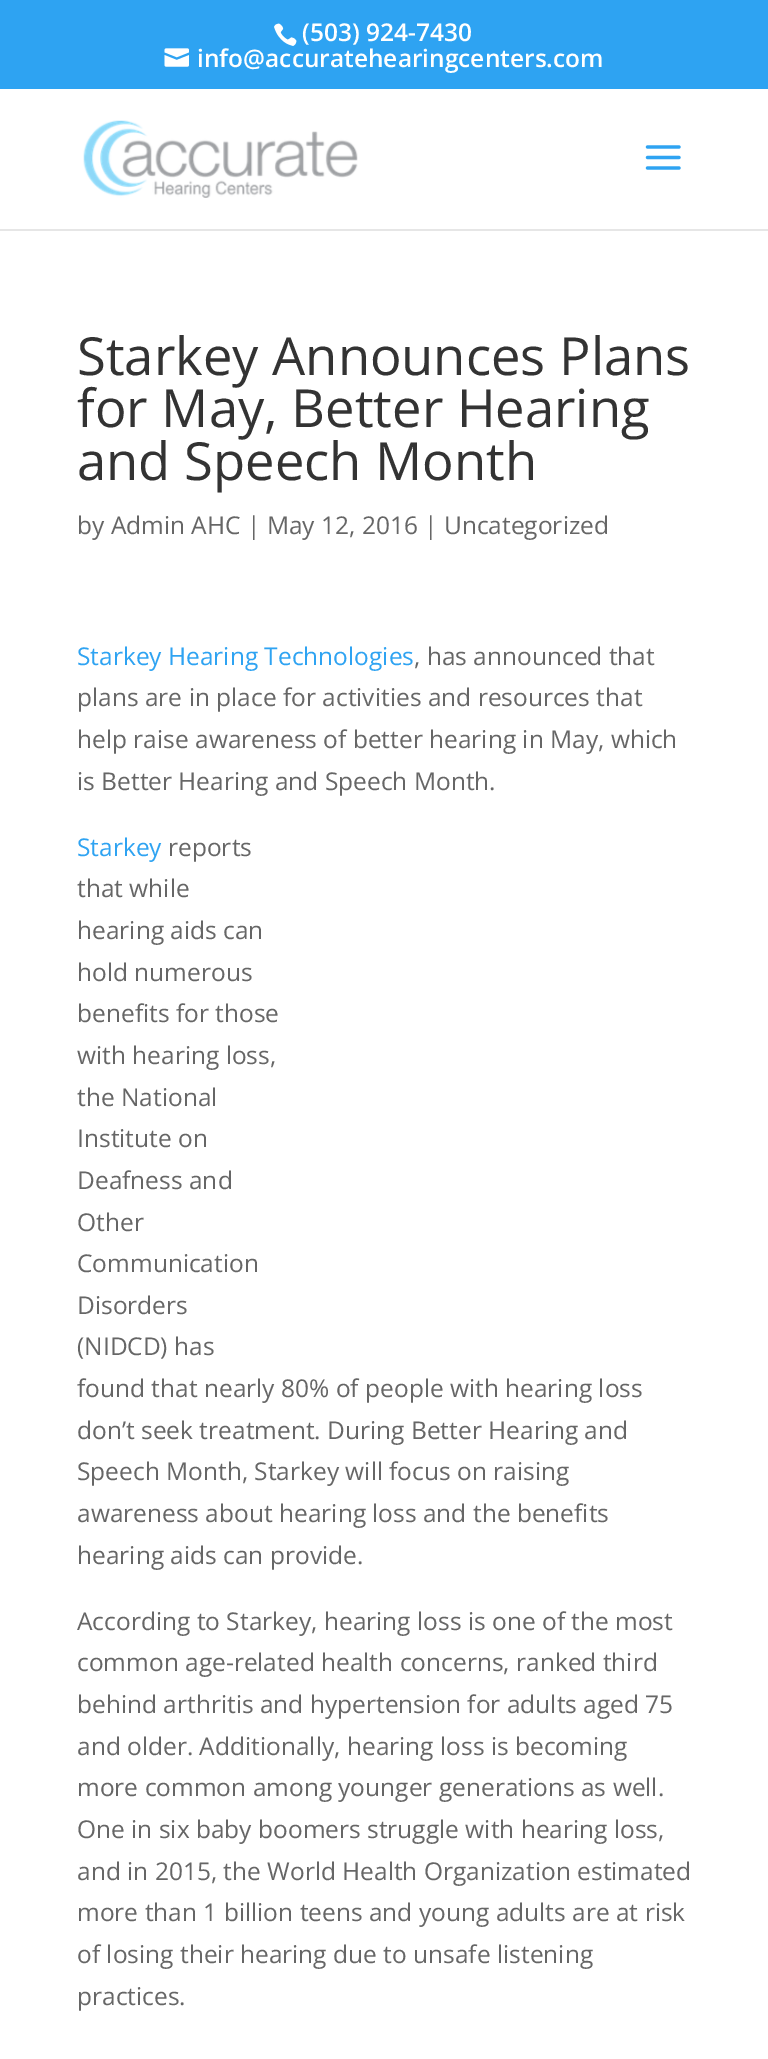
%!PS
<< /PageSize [768 2059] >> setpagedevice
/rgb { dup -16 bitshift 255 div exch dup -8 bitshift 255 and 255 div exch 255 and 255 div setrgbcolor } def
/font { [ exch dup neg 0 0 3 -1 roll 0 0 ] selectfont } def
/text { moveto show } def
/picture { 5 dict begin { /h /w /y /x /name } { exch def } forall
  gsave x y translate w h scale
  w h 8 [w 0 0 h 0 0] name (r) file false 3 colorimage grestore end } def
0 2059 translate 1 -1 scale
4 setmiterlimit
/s1 { /OpenSans-SemiBold 24.5 font 16#FFFFFF rgb } def
/s2 { /OpenSans-Regular 52.5 font 16#333333 rgb } def
/s3 { /OpenSans-Regular 24.5 font 16#666666 rgb } def
/s4 { /OpenSans-Regular 24.5 font 16#2EA3F2 rgb } def
16#FFFFFF rgb
0 0 768 2059 rectfill
16#2EA3F2 rgb
0 0 768 89 rectfill
(pic1.raw) 274 23 23 23 picture
s1
(\(503\) 924-7430) 302 41 text
(pic2.raw) 164 48 25 19 picture
(info@accuratehearingcenters.com) 197 67 text
16#E6E6E6 rgb
0 229 768 2 rectfill
(pic3.raw) 83 120 275 78 picture
(pic4.raw) 645 145 36 25 picture
s2
(Starkey Announces Plans) 77 375 text
(for May, Better Hearing) 77 427 text
(and Speech Month) 77 480 text
s3
(by Admin AHC | May 12, 2016 | Uncategorized) 77 534 text
s4
(Starkey Hearing Technologies) 77 665 text
s3
(, has announced that) 414 665 text
(plans are in place for activities and resources that) 77 706 text
(help raise awareness of better hearing in May, which) 77 748 text
(is Better Hearing and Speech Month.) 77 790 text
s4
(Starkey) 77 856 text
s3
(reports) 168 856 text
(that while) 77 897 text
(hearing aids can) 77 939 text
(hold numerous) 77 981 text
(benefits for those) 77 1022 text
(with hearing loss,) 77 1064 text
(the National) 77 1106 text
(Institute on) 77 1147 text
(Deafness and) 77 1189 text
(Other) 77 1231 text
(Communication) 77 1272 text
(Disorders) 77 1314 text
(\(NIDCD\) has) 77 1355 text
(found that nearly 80% of people with hearing loss) 77 1397 text
(don’t seek treatment. During Better Hearing and) 77 1439 text
(Speech Month, Starkey will focus on raising) 77 1480 text
(awareness about hearing loss and the benefits) 77 1522 text
(hearing aids can provide.) 77 1564 text
(According to Starkey, hearing loss is one of the most) 77 1630 text
(common age-related health concerns, ranked third) 77 1671 text
(behind arthritis and hypertension for adults aged 75) 77 1713 text
(and older. Additionally, hearing loss is becoming) 77 1755 text
(more common among younger generations as well.) 77 1796 text
(One in six baby boomers struggle with hearing loss,) 77 1838 text
(and in 2015, the World Health Organization estimated) 77 1880 text
(more than 1 billion teens and young adults are at risk) 77 1921 text
(of losing their hearing due to unsafe listening) 77 1963 text
(practices.) 77 2005 text
showpage
